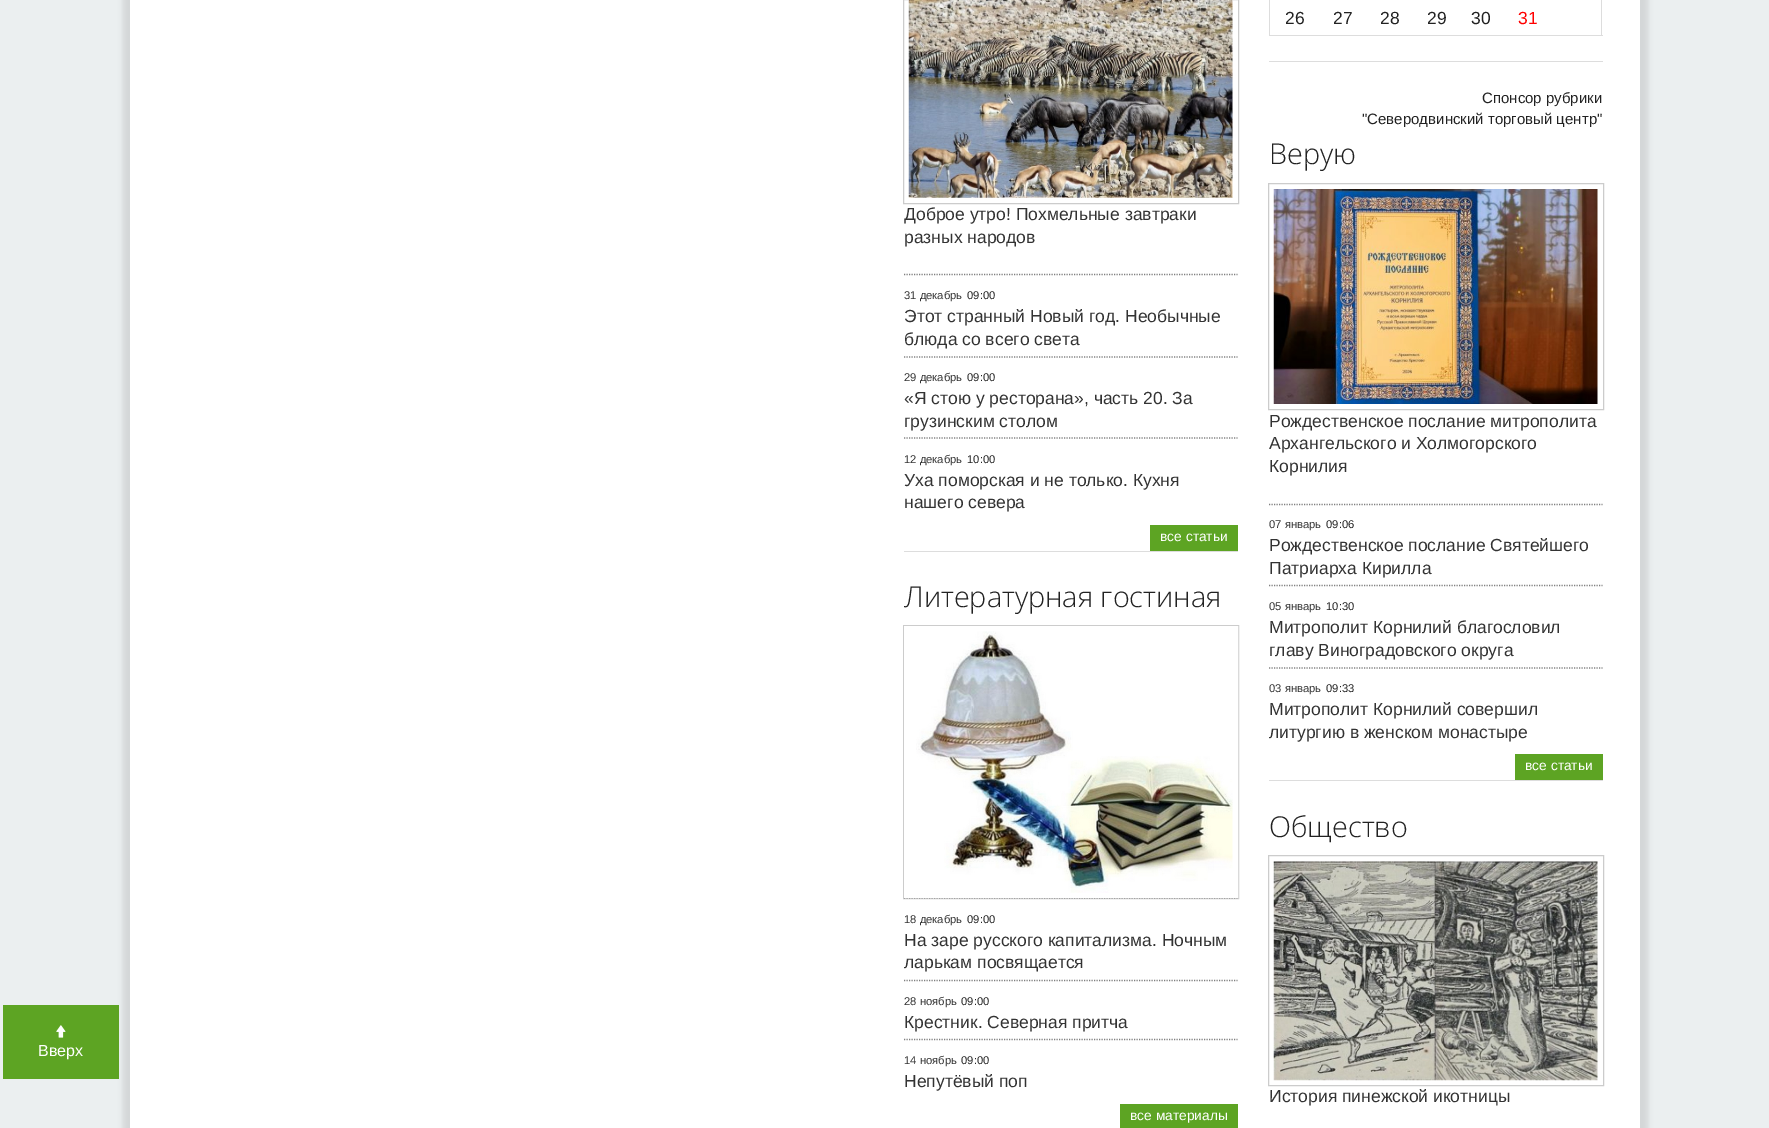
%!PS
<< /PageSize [1769 1128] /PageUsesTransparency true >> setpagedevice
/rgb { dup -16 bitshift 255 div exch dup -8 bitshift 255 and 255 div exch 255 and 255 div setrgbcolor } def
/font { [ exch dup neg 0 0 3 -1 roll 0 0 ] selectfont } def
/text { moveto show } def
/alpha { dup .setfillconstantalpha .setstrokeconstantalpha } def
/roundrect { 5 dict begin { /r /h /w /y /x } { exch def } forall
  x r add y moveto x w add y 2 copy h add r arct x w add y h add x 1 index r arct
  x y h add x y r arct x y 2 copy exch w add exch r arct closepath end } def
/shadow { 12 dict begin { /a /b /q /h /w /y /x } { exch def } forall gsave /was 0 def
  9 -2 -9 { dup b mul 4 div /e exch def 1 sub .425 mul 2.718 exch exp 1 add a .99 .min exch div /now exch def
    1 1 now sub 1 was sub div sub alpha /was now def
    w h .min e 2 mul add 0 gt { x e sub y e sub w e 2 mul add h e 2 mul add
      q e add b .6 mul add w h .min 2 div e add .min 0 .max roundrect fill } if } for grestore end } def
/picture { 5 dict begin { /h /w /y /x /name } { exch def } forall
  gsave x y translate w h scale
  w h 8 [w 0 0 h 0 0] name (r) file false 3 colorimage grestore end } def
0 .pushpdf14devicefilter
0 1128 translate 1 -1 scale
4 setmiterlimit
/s1 { /LiberationSans-Regular 16 font 16#FFFFFF rgb } def
/s2 { /LiberationSans-Regular 17.5 font 16#333333 rgb } def
/s3 { /LiberationSans-Regular 11.25 font 16#333333 rgb } def
/s4 { /LiberationSans-Regular 11.25 font 16#222222 rgb } def
/s5 { /LiberationSans-Regular 13.75 font 16#FFFFFF rgb } def
/s6 { /OpenSans-Light 28.75 font 16#222222 rgb } def
/s7 { /LiberationSans-Regular 17.5 font 16#222222 rgb } def
/s8 { /LiberationSans-Regular 17.5 font 16#FF0000 rgb } def
/s9 { /LiberationSans-Regular 15 font 16#222222 rgb } def
16#EBEFF0 rgb
0 0 1769 1128 rectfill
16#5DA423 rgb
3 1005 116 74 rectfill
(pic1.raw) 56 1025 10 13 picture
s1
(Вверх) 38 1056 text
16#000000 rgb
148 -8 1500 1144 0 2.5 0.1 shadow
123 -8 1500 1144 0 2.5 0.1 shadow
16#FFFFFF rgb
130 0 1510 1128 rectfill
16#CCCCCC rgb
903.5 -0.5 335 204 rectstroke
(pic2.raw) 908 0 325 198 picture
s2
(Доброе утро! Похмельные завтраки) 904 220 text
(разных народов) 904 243 text
16#808080 rgb
1.2 setlinewidth
[1.25 1.25] 0 setdash
904 274.5 moveto 1237.5 274.5 lineto stroke
s3
(31 декабрь) 904 299 text
s4
(09:00) 967 299 text
s2
(Этот странный Новый год. Необычные) 904 322 text
(блюда со всего света) 904 345 text
16#808080 rgb
904 357 moveto 1237.5 357 lineto stroke
s3
(29 декабрь) 904 381 text
s4
(09:00) 967 381 text
s2
(«Я стою у ресторана», часть 20. За) 904 404 text
(грузинским столом) 904 427 text
16#808080 rgb
904 438 moveto 1237.5 438 lineto stroke
s3
(12 декабрь) 904 463 text
s4
(10:00) 967 463 text
s2
(Уха поморская и не только. Кухня) 904 486 text
(нашего севера) 904 508 text
16#5DA423 rgb
1150 525 88 26 rectfill
s5
(все статьи) 1160 541 text
16#DDDDDD rgb
904 551 334 1 rectfill
s6
(Литературная гостиная) 904 607 text
16#808080 rgb
904 898 moveto 1237.5 898 lineto stroke
0.2 alpha
16#000000 rgb
1 setlinewidth
[] 0 setdash
903.5 625.5 335 273 rectstroke
1 alpha
16#FFFFFF rgb
5 setlinewidth
906.5 628.5 329 267 rectstroke
(pic3.raw) 916 631 317 262 picture
s3
(18 декабрь) 904 923 text
s4
(09:00) 967 923 text
s2
(На заре русского капитализма. Ночным) 904 946 text
(ларькам посвящается) 904 968 text
16#808080 rgb
1.2 setlinewidth
[1.25 1.25] 0 setdash
904 980.5 moveto 1237.5 980.5 lineto stroke
s3
(28 ноябрь) 904 1005 text
s4
(09:00) 961 1005 text
s2
(Крестник. Северная притча) 904 1028 text
16#808080 rgb
904 1039.5 moveto 1237.5 1039.5 lineto stroke
s3
(14 ноябрь) 904 1064 text
s4
(09:00) 961 1064 text
s2
(Непутёвый поп) 904 1087 text
16#5DA423 rgb
1120 1104 118 24 rectfill
s5
(все материалы) 1130 1120 text
16#DDDDDD rgb
1601 0 1 36 rectfill
1269 35 334 1 rectfill
1269 0 1 36 rectfill
s7
(26) 1285 24 text
(27) 1333 24 text
(28) 1380 24 text
(29) 1427 24 text
(30) 1471 24 text
s8
(31) 1518 24 text
16#DDDDDD rgb
1269 61 334 1 rectfill
s9
(Спонсор рубрики) 1482 103 text
("Северодвинский торговый центр") 1362 124 text
s6
(Верую) 1269 164 text
16#CCCCCC rgb
1 setlinewidth
[] 0 setdash
1268.5 183.5 335 226 rectstroke
(pic4.raw) 1273 189 325 215 picture
s2
(Рождественское послание митрополита) 1269 427 text
(Архангельского и Холмогорского) 1269 449 text
(Корнилия) 1269 472 text
16#808080 rgb
1.2 setlinewidth
[1.25 1.25] 0 setdash
1269 504.5 moveto 1602.5 504.5 lineto stroke
s3
(07 январь) 1269 528 text
s4
(09:06) 1326 528 text
s2
(Рождественское послание Святейшего) 1269 551 text
(Патриарха Кирилла) 1269 574 text
16#808080 rgb
1269 585.5 moveto 1602.5 585.5 lineto stroke
s3
(05 январь) 1269 610 text
s4
(10:30) 1326 610 text
s2
(Митрополит Корнилий благословил) 1269 633 text
(главу Виноградовского округа) 1269 656 text
16#808080 rgb
1269 668 moveto 1602.5 668 lineto stroke
s3
(03 январь) 1269 692 text
s4
(09:33) 1326 692 text
s2
(Митрополит Корнилий совершил) 1269 715 text
(литургию в женском монастыре) 1269 738 text
16#5DA423 rgb
1515 754 88 26 rectfill
s5
(все статьи) 1525 770 text
16#DDDDDD rgb
1269 780 334 1 rectfill
s6
(Общество) 1269 837 text
16#CCCCCC rgb
1 setlinewidth
[] 0 setdash
1268.5 855.5 335 230 rectstroke
(pic5.raw) 1273 861 325 220 picture
s2
(История пинежской икотницы) 1269 1102 text
.poppdf14devicefilter showpage
